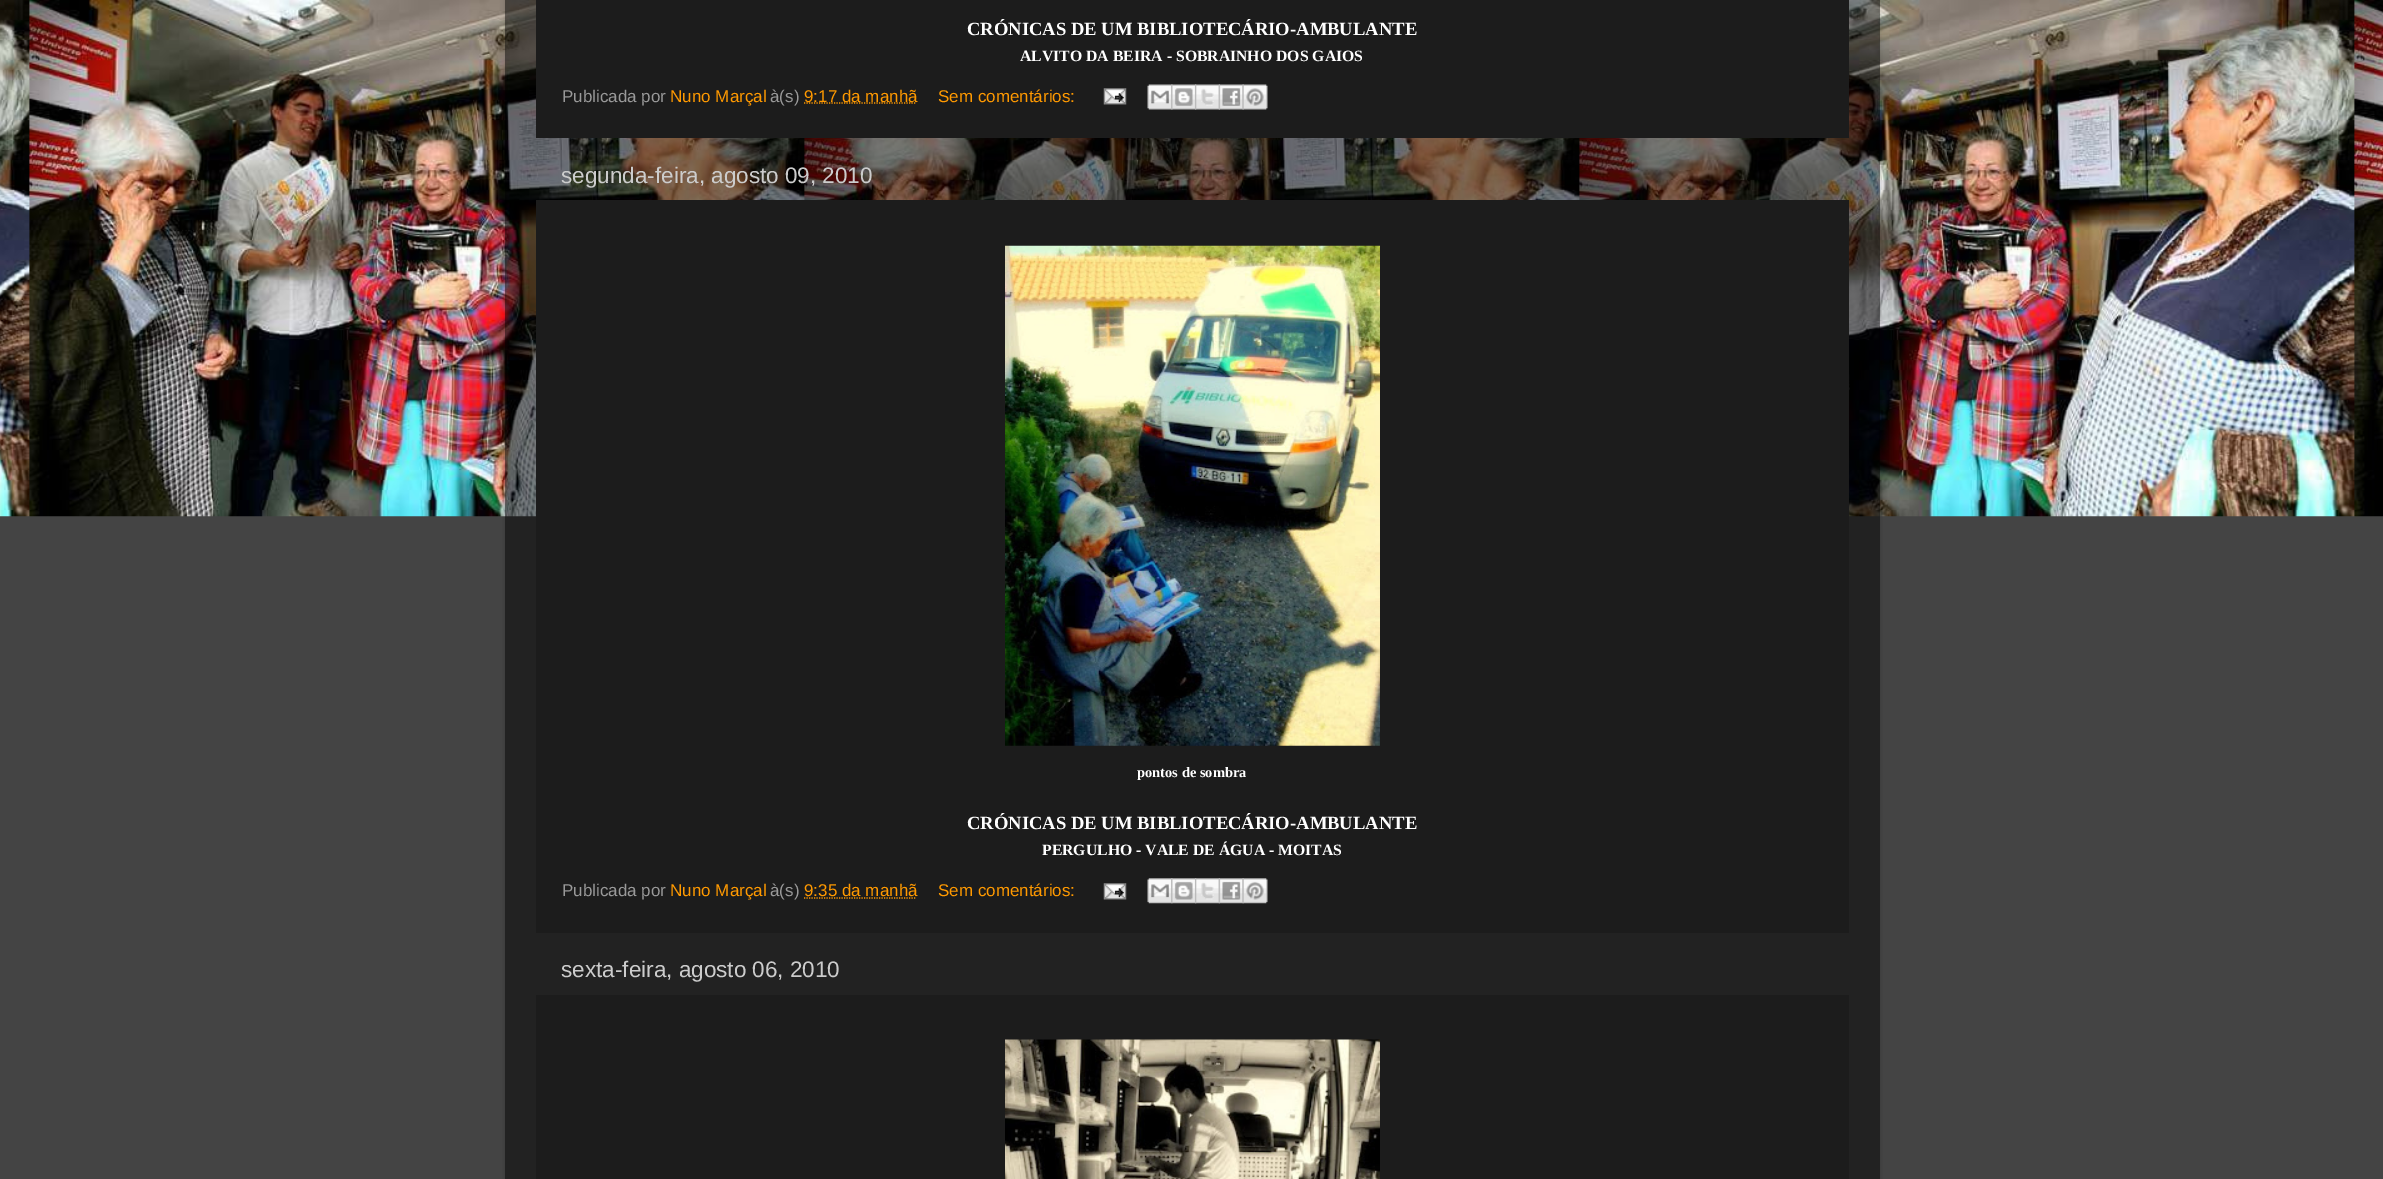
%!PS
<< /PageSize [2383 1179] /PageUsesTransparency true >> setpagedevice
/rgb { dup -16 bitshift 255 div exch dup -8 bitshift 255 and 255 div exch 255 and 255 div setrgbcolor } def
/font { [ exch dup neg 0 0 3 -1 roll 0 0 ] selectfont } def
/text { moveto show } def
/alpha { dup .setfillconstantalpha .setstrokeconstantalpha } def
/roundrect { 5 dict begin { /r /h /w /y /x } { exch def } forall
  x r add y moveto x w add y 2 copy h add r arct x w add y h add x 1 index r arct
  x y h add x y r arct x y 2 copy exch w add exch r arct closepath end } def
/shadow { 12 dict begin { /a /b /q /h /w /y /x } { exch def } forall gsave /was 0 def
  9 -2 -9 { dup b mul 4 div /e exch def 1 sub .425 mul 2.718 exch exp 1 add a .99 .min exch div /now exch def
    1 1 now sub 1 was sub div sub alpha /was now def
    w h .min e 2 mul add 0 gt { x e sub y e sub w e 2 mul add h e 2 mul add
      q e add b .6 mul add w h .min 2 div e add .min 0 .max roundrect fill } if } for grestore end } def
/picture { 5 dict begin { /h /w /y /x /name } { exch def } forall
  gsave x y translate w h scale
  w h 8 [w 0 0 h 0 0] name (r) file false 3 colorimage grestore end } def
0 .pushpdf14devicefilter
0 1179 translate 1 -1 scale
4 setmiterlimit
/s1 { /LiberationSerif-Bold 18.6 font 16#FFFFFF rgb } def
/s2 { /LiberationSerif-Bold 15.75 font 16#FFFFFF rgb } def
/s3 { /LiberationSans-Regular 17 font 16#999999 rgb } def
/s4 { /LiberationSans-Regular 17 font 16#FF9900 rgb } def
/s5 { /LiberationSans-Regular 22.5 font 16#CCCCCC rgb } def
/s6 { /LiberationSerif-Bold 14.5 font 16#FFFFFF rgb } def
16#444444 rgb
0 0 2383 1179 rectfill
(pic1.raw) 0 0 2383 517 picture
gsave
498 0 moveto 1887 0 lineto 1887 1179 lineto 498 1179 lineto closepath 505 -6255 moveto 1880 -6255 lineto 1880 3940 lineto 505 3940 lineto closepath eoclip newpath
16#000000 rgb
505 -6 1375 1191 0 2 0.15 shadow
grestore
0.5 alpha
16#000000 rgb
505 0 1375 1179 rectfill
1 alpha
16#1C1C1C rgb
536 0 1313 138 rectfill
s1
(CRÓNICAS DE UM BIBLIOTECÁRIO-AMBULANTE) 967 35 text
s2
(ALVITO DA BEIRA - SOBRAINHO DOS GAIOS) 1020 61 text
s3
(Publicada por) 562 102 text
s4
(Nuno Marçal) 670 102 text
s3
(à\(s\)) 770 102 text
16#FF9900 rgb
1.2 setlinewidth
[1.25 1.25] 0 setdash
804 103 moveto 916.5 103 lineto stroke
(9:17 da manhã) 804 102 text
(Sem comentários:) 938 102 text
(pic2.raw) 1103 88 24 17 picture
(pic3.raw) 1147 84 26 26 picture
(pic4.raw) 1171 84 26 26 picture
(pic5.raw) 1195 84 25 26 picture
(pic6.raw) 1218 84 26 26 picture
(pic7.raw) 1242 84 26 26 picture
s5
(segunda-feira, agosto 09, 2010) 561 183 text
16#1C1C1C rgb
536 200 1313 733 rectfill
(pic8.raw) 1005 245 375 501 picture
s6
(pontos de sombra) 1137 777 text
s1
(CRÓNICAS DE UM BIBLIOTECÁRIO-AMBULANTE) 967 829 text
s2
(PERGULHO - VALE DE ÁGUA - MOITAS) 1042 855 text
s3
(Publicada por) 562 896 text
s4
(Nuno Marçal) 670 896 text
s3
(à\(s\)) 770 896 text
s4
(9:35 da manhã) 804 896 text
804 898 moveto 916.5 898 lineto stroke
(Sem comentários:) 938 896 text
(pic2.raw) 1103 883 24 17 picture
(pic9.raw) 1147 878 26 26 picture
(pic10.raw) 1171 878 26 26 picture
(pic11.raw) 1195 878 25 26 picture
(pic12.raw) 1218 878 26 26 picture
(pic13.raw) 1242 878 26 26 picture
s5
(sexta-feira, agosto 06, 2010) 561 977 text
16#1C1C1C rgb
536 995 1313 184 rectfill
(pic14.raw) 1005 1039 375 140 picture
.poppdf14devicefilter showpage
